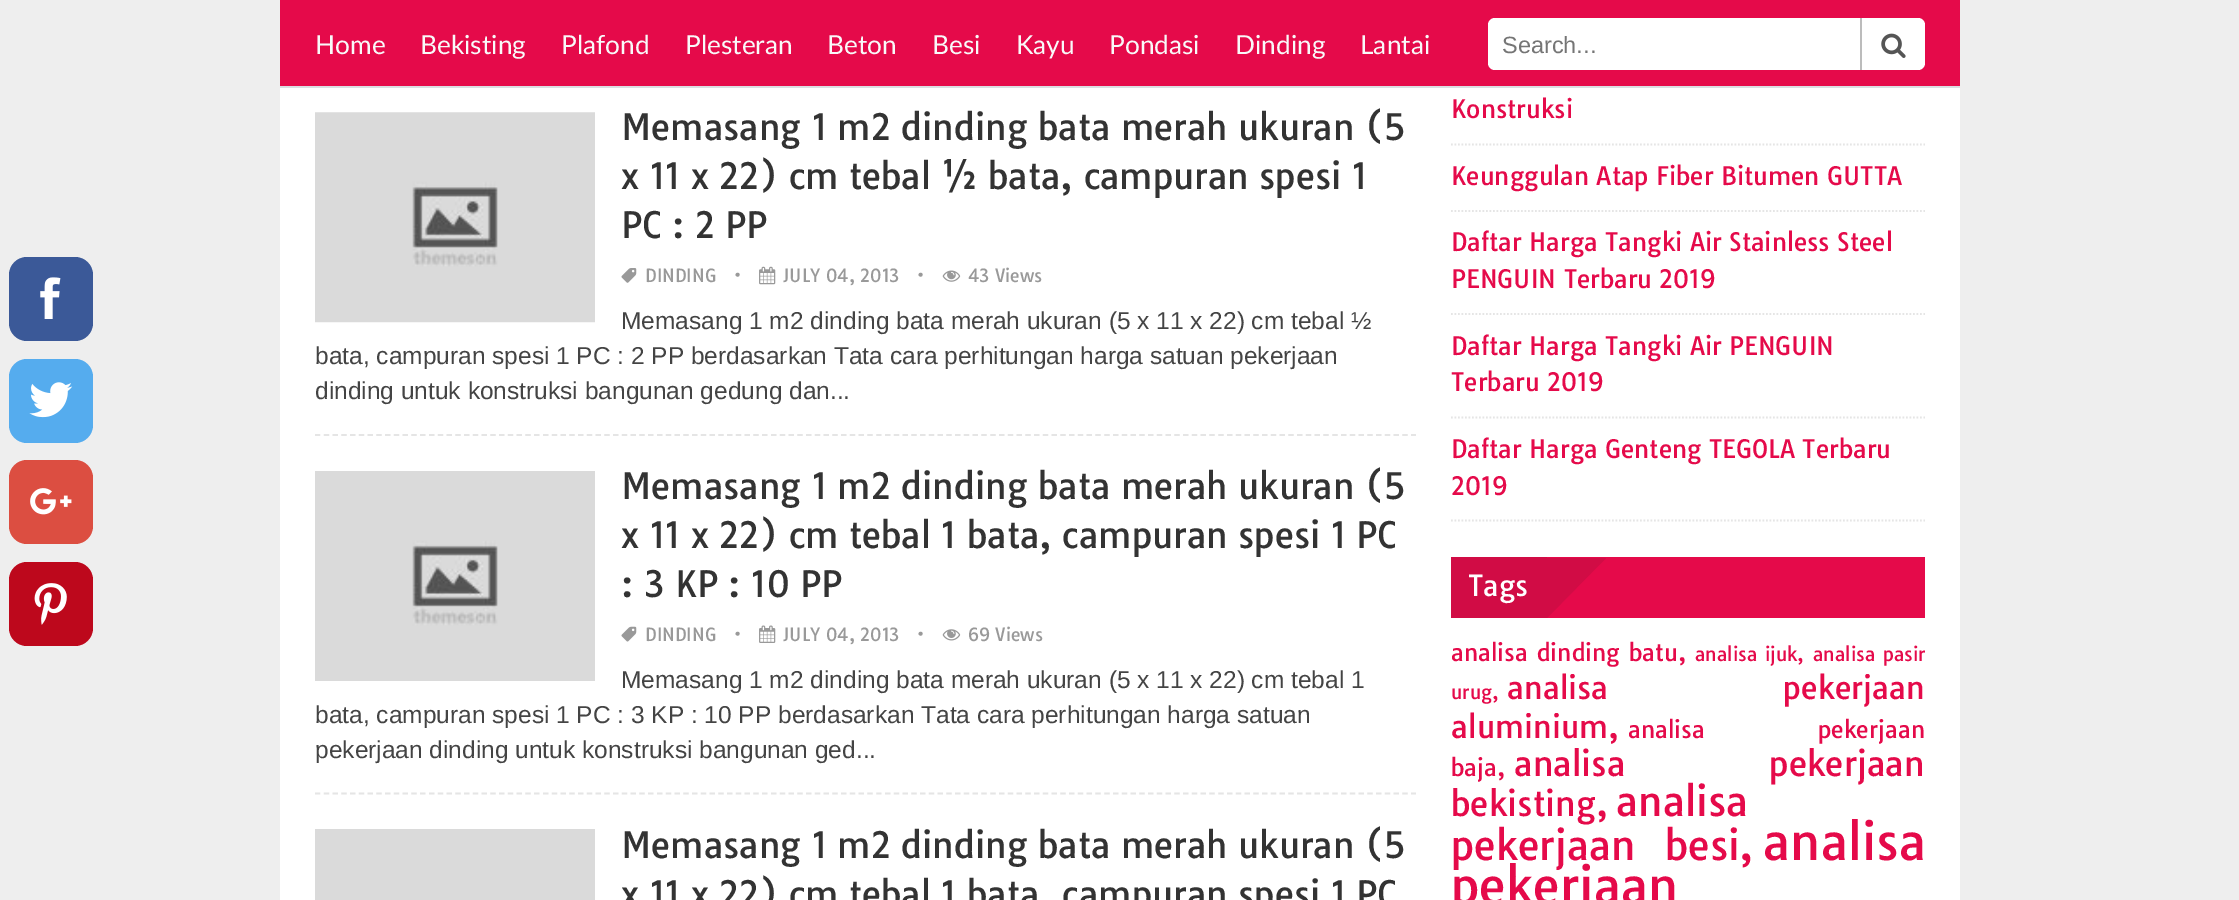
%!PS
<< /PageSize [2239 900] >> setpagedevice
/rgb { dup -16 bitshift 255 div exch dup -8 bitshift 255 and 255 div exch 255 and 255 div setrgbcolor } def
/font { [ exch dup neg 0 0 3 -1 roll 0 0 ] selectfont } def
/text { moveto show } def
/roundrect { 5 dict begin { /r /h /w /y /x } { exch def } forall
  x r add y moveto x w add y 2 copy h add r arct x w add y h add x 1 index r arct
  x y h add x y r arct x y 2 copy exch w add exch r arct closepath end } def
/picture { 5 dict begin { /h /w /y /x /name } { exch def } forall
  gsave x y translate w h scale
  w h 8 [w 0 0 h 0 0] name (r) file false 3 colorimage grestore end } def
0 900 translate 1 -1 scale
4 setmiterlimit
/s1 { /Lato-Regular 26.25 font 16#F9F9F9 rgb } def
/s2 { /LiberationSans-Regular 23.5 font 16#757575 rgb } def
/s3 { /Tauri-Regular 35 font 16#333333 rgb } def
/s4 { /Tauri-Regular 17.5 font 16#999999 rgb } def
/s5 { /LiberationSans-Regular 24.5 font 16#444444 rgb } def
/s6 { /Tauri-Regular 24.5 font 16#E50A4A rgb } def
/s7 { /Tauri-Regular 28 font 16#FFFFFF rgb } def
/s8 { /Tauri-Regular 23.1 font 16#E50A4A rgb } def
/s9 { /Tauri-Regular 18.75 font 16#E50A4A rgb } def
/s10 { /Tauri-Regular 30.5 font 16#E50A4A rgb } def
/s11 { /Tauri-Regular 33.5 font 16#E50A4A rgb } def
/s12 { /Tauri-Regular 39.75 font 16#E50A4A rgb } def
/s13 { /Tauri-Regular 49 font 16#E50A4A rgb } def
16#EEEEEE rgb
0 0 2239 900 rectfill
16#3B5998 rgb
9 257 84 84 18 roundrect fill
(pic1.raw) 40 277 21 42 picture
16#55ACEE rgb
9 359 84 84 18 roundrect fill
(pic2.raw) 29 382 44 36 picture
16#DC4E41 rgb
9 460 84 84 18 roundrect fill
(pic3.raw) 30 488 42 27 picture
16#BD081C rgb
9 562 84 84 18 roundrect fill
(pic4.raw) 34 583 33 42 picture
16#E50A4A rgb
280 0 1680 86 rectfill
16#DBDEE2 rgb
280 86 1680 2 rectfill
s1
(Home) 315 54 text
(Bekisting) 420 54 text
(Plafond) 561 54 text
(Plesteran) 685 54 text
(Beton) 827 54 text
(Besi) 932 54 text
(Kayu) 1016 54 text
(Pondasi) 1109 54 text
(Dinding) 1235 54 text
(Lantai) 1360 54 text
16#FFFFFF rgb
1488 18 437 52 7 roundrect fill
s2
(Search...) 1502 53 text
16#BCBCBC rgb
1860 18 2 52 rectfill
(pic5.raw) 1881 33 25 25 picture
16#FFFFFF rgb
280 88 1680 812 rectfill
16#E5E5E5 rgb
1.8 setlinewidth
[5.25 3.52] 0 setdash
315 435 moveto 1416 435 lineto stroke
(pic6.raw) 315 112 280 211 picture
s3
(Memasang 1 m2 dinding bata merah ukuran \(5) 621 140 text
(x 11 x 22\) cm tebal ½ bata, campuran spesi 1) 621 189 text
(PC : 2 PP) 621 238 text
(pic7.raw) 621 268 16 15 picture
s4
(DINDING) 645 282 text
(•) 734 282 text
(pic8.raw) 759 266 17 19 picture
(JULY 04, 2013) 783 282 text
(•) 917 282 text
(pic9.raw) 942 270 19 12 picture
(43 Views) 968 282 text
s5
(Memasang 1 m2 dinding bata merah ukuran \(5 x 11 x 22\) cm tebal ½) 621 329 text
(bata, campuran spesi 1 PC : 2 PP berdasarkan Tata cara perhitungan harga satuan pekerjaan) 315 364 text
(dinding untuk konstruksi bangunan gedung dan...) 315 399 text
16#E5E5E5 rgb
315 793.5 moveto 1416 793.5 lineto stroke
(pic10.raw) 315 471 280 210 picture
s3
(Memasang 1 m2 dinding bata merah ukuran \(5) 621 499 text
(x 11 x 22\) cm tebal 1 bata, campuran spesi 1 PC) 621 548 text
(: 3 KP : 10 PP) 621 597 text
(pic11.raw) 621 626 16 16 picture
s4
(DINDING) 645 641 text
(•) 734 641 text
(pic12.raw) 759 625 17 18 picture
(JULY 04, 2013) 783 641 text
(•) 917 641 text
(pic13.raw) 942 629 19 12 picture
(69 Views) 968 641 text
s5
(Memasang 1 m2 dinding bata merah ukuran \(5 x 11 x 22\) cm tebal 1) 621 688 text
(bata, campuran spesi 1 PC : 3 KP : 10 PP berdasarkan Tata cara perhitungan harga satuan) 315 723 text
(pekerjaan dinding untuk konstruksi bangunan ged...) 315 758 text
16#DADADA rgb
315 829 280 71 rectfill
s3
(Memasang 1 m2 dinding bata merah ukuran \(5) 621 858 text
(x 11 x 22\) cm tebal 1 bata, campuran spesi 1 PC) 621 907 text
16#E5E5E5 rgb
[1.75 1.75] 0 setdash
1451 144.5 moveto 1925 144.5 lineto stroke
s6
(Konstruksi) 1451 118 text
16#E5E5E5 rgb
1451 211 moveto 1925 211 lineto stroke
s6
(Keunggulan Atap Fiber Bitumen GUTTA) 1451 185 text
16#E5E5E5 rgb
1451 314 moveto 1925 314 lineto stroke
s6
(Daftar Harga Tangki Air Stainless Steel) 1451 251 text
(PENGUIN Terbaru 2019) 1451 288 text
16#E5E5E5 rgb
1451 417.5 moveto 1925 417.5 lineto stroke
s6
(Daftar Harga Tangki Air PENGUIN) 1451 355 text
(Terbaru 2019) 1451 391 text
16#E5E5E5 rgb
1451 520.5 moveto 1925 520.5 lineto stroke
s6
(Daftar Harga Genteng TEGOLA Terbaru) 1451 458 text
(2019) 1451 495 text
1547 557 378 61 rectfill
16#D10C45 rgb
1451 557 96 61 rectfill
s7
(Tags) 1468 596 text
16#D10C45 rgb
1547 558 moveto 1606 558 lineto 1547 618 lineto closepath fill
/Tauri-Regular 23.1 font
16#E50A4A rgb
1451 661 moveto 2 0 32 (analisa dinding batu) widthshow
(,) 1678 661 text
/Tauri-Regular 18.75 font
1695 661 moveto 2 0 32 (analisa ijuk) widthshow
(,) 1797 661 text
1813 661 moveto 2 0 32 (analisa pasir) widthshow
(urug,) 1451 699 text
/Tauri-Regular 30.5 font
1507 699 moveto 166 0 32 (analisa pekerjaan) widthshow
(aluminium,) 1451 738 text
/Tauri-Regular 23.1 font
1628 738 moveto 106 0 32 (analisa pekerjaan) widthshow
(baja,) 1451 776 text
/Tauri-Regular 33.5 font
1514 776 moveto 134 0 32 (analisa pekerjaan) widthshow
(bekisting,) 1451 816 text
s12
(analisa) 1616 816 text
1451 860 moveto 18 0 32 (pekerjaan besi) widthshow
(,) 1739 860 text
s13
(analisa) 1763 860 text
(pekerjaan) 1451 904 text
showpage
